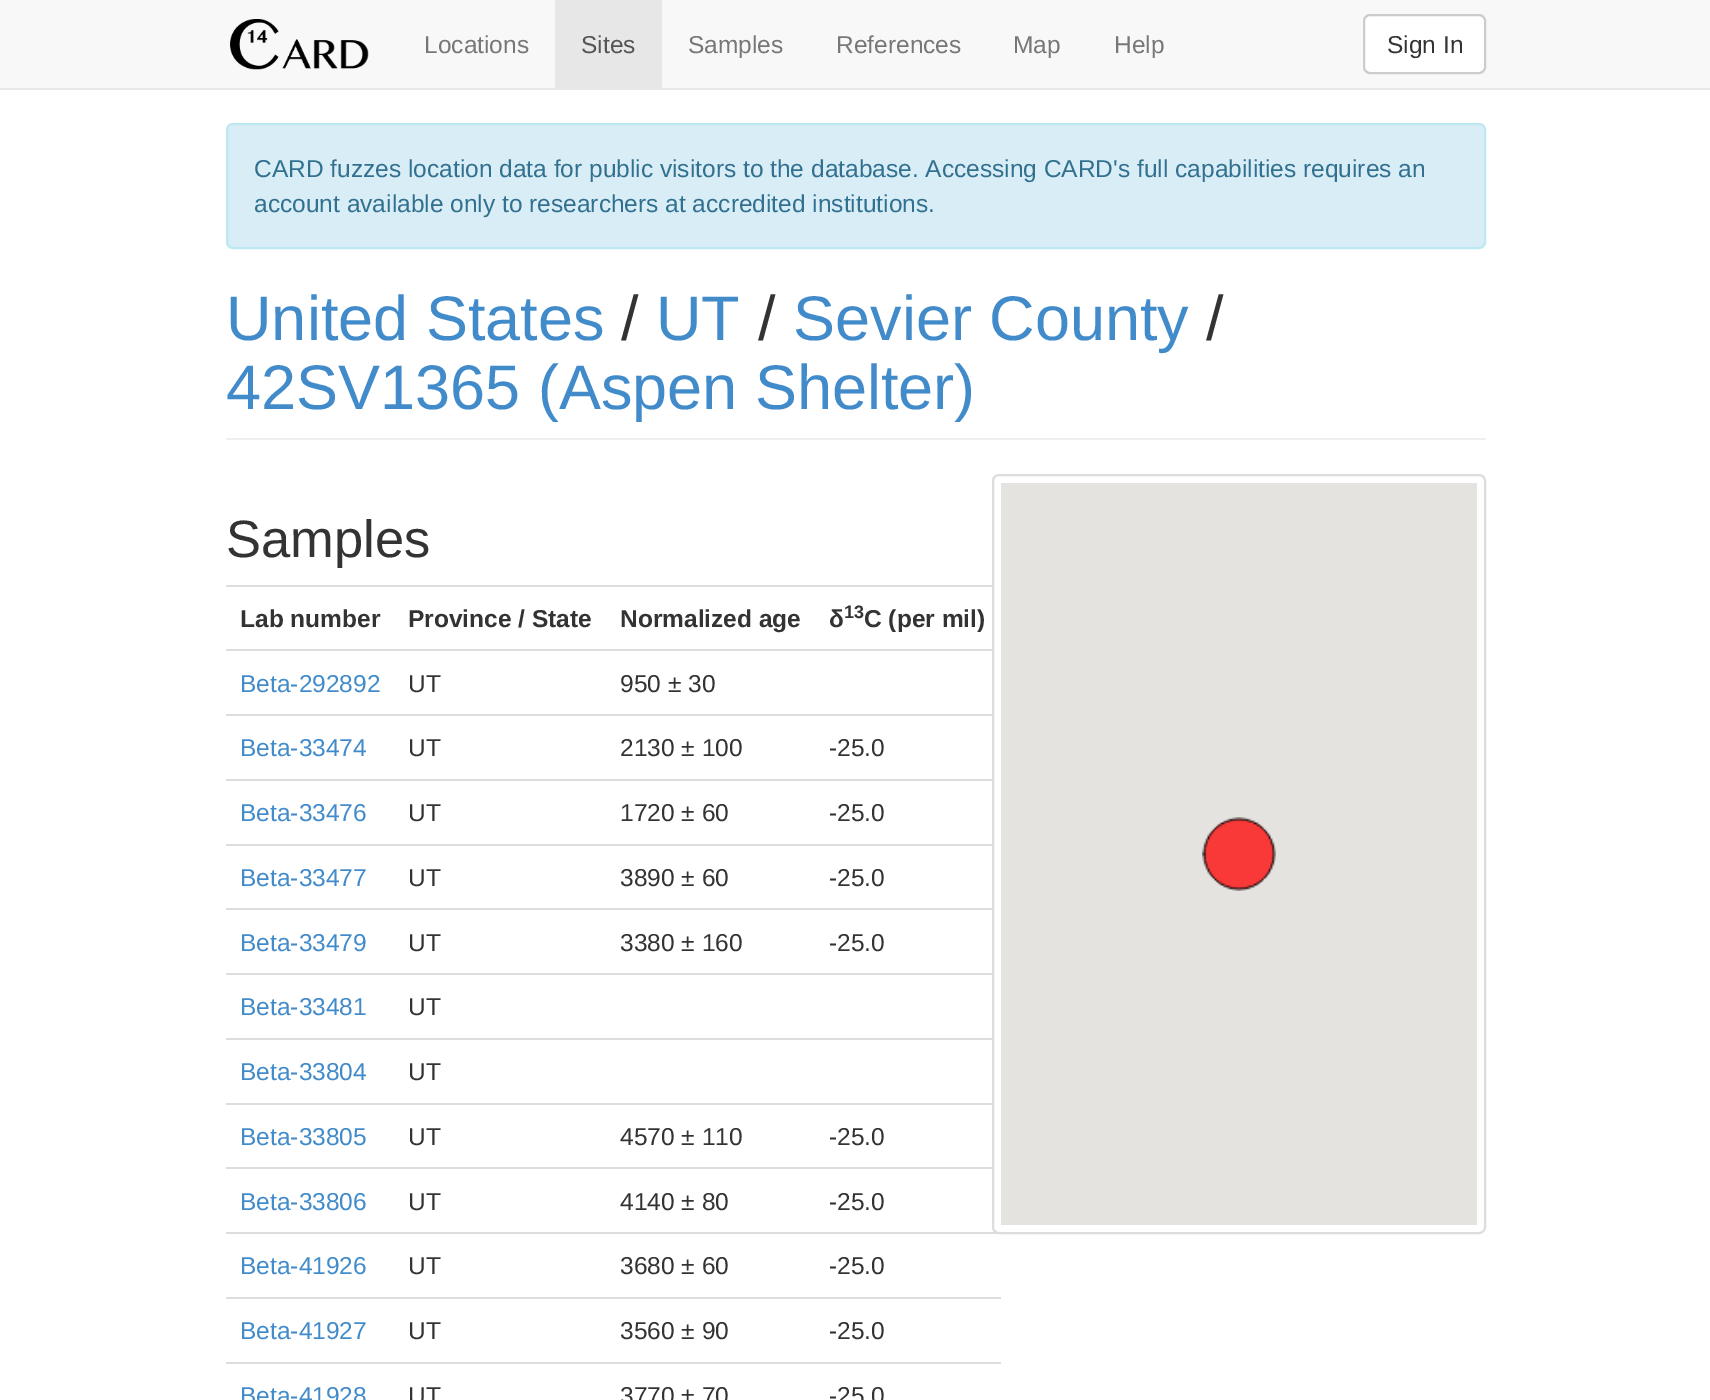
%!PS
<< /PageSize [1710 1400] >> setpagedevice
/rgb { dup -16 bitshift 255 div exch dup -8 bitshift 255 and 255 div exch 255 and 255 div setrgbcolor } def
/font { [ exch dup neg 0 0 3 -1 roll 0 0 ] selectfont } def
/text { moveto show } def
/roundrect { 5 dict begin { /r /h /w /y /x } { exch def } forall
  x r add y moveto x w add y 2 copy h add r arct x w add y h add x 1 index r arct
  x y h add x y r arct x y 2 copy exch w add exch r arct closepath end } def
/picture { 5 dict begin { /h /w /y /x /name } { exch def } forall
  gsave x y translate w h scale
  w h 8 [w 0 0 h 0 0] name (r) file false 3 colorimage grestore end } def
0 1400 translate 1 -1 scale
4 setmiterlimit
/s1 { /LiberationSans-Regular 24.5 font 16#777777 rgb } def
/s2 { /LiberationSans-Regular 24.5 font 16#555555 rgb } def
/s3 { /LiberationSans-Regular 24.5 font 16#333333 rgb } def
/s4 { /LiberationSans-Regular 24.5 font 16#31708F rgb } def
/s5 { /LiberationSans-Regular 63 font 16#428BCA rgb } def
/s6 { /LiberationSans-Regular 63 font 16#333333 rgb } def
/s7 { /LiberationSans-Regular 52.5 font 16#333333 rgb } def
/s8 { /LiberationSans-Bold 24.5 font 16#333333 rgb } def
/s9 { /LiberationSans-Bold 18 font 16#333333 rgb } def
/s10 { /LiberationSans-Regular 24.5 font 16#428BCA rgb } def
16#FFFFFF rgb
0 0 1710 1400 rectfill
16#F8F8F8 rgb
0 0 1710 88 rectfill
16#E7E7E7 rgb
0 88 1710 2 rectfill
(pic1.raw) 230 19 139 51 picture
s1
(Locations) 424 53 text
16#E7E7E7 rgb
555 0 107 88 rectfill
s2
(Sites) 581 53 text
s1
(Samples) 688 53 text
(References) 836 53 text
(Map) 1013 53 text
(Help) 1114 53 text
16#FFFFFF rgb
1364 15 121 58 6 roundrect gsave fill grestore
16#CCCCCC rgb
2 setlinewidth
stroke
s3
(Sign In) 1387 53 text
16#D9EDF7 rgb
227 124 1258 124 6 roundrect gsave fill grestore
16#BCE8F1 rgb
stroke
s4
(CARD fuzzes location data for public visitors to the database. Accessing CARD's full capabilities requires an) 254 177 text
(account available only to researchers at accredited institutions.) 254 212 text
16#EEEEEE rgb
226 438 1260 2 rectfill
s5
(United States) 226 340 text
s6
(/) 621 340 text
s5
(UT) 656 340 text
s6
(/) 758 340 text
s5
(Sevier County) 793 340 text
s6
(/) 1206 340 text
s5
(42SV1365 \(Aspen Shelter\)) 226 409 text
s7
(Samples) 226 557 text
s8
(Lab number) 240 627 text
(Province / State) 408 627 text
(Normalized age) 620 627 text
16#DDDDDD rgb
226 585 766 2 rectfill
s8
(δ) 829 627 text
s9
(13) 844 618 text
s8
(C \(per mil\)) 864 627 text
16#DDDDDD rgb
226 649 766 2 rectfill
s10
(Beta-292892) 240 692 text
s3
(UT) 408 692 text
(950 ± 30) 620 692 text
s10
(Beta-33474) 240 756 text
s3
(UT) 408 756 text
(2130 ± 100) 620 756 text
16#DDDDDD rgb
226 714 766 2 rectfill
s3
(-25.0) 829 756 text
s10
(Beta-33476) 240 821 text
s3
(UT) 408 821 text
(1720 ± 60) 620 821 text
16#DDDDDD rgb
226 779 766 2 rectfill
s3
(-25.0) 829 821 text
s10
(Beta-33477) 240 886 text
s3
(UT) 408 886 text
(3890 ± 60) 620 886 text
16#DDDDDD rgb
226 844 766 2 rectfill
s3
(-25.0) 829 886 text
s10
(Beta-33479) 240 951 text
s3
(UT) 408 951 text
(3380 ± 160) 620 951 text
16#DDDDDD rgb
226 908 766 2 rectfill
s3
(-25.0) 829 951 text
16#DDDDDD rgb
226 973 766 2 rectfill
s10
(Beta-33481) 240 1015 text
s3
(UT) 408 1015 text
16#DDDDDD rgb
226 1038 766 2 rectfill
s10
(Beta-33804) 240 1080 text
s3
(UT) 408 1080 text
s10
(Beta-33805) 240 1145 text
s3
(UT) 408 1145 text
(4570 ± 110) 620 1145 text
16#DDDDDD rgb
226 1103 766 2 rectfill
s3
(-25.0) 829 1145 text
s10
(Beta-33806) 240 1210 text
s3
(UT) 408 1210 text
(4140 ± 80) 620 1210 text
16#DDDDDD rgb
226 1167 766 2 rectfill
s3
(-25.0) 829 1210 text
s10
(Beta-41926) 240 1274 text
s3
(UT) 408 1274 text
(3680 ± 60) 620 1274 text
16#DDDDDD rgb
226 1232 775 2 rectfill
s3
(-25.0) 829 1274 text
s10
(Beta-41927) 240 1339 text
s3
(UT) 408 1339 text
(3560 ± 90) 620 1339 text
16#DDDDDD rgb
226 1297 775 2 rectfill
s3
(-25.0) 829 1339 text
s10
(Beta-41928) 240 1404 text
s3
(UT) 408 1404 text
(3770 ± 70) 620 1404 text
16#DDDDDD rgb
226 1362 775 2 rectfill
s3
(-25.0) 829 1404 text
16#FFFFFF rgb
993 475 492 758 6 roundrect gsave fill grestore
16#DDDDDD rgb
stroke
16#E5E3DF rgb
1001 483 476 742 rectfill
(pic2.raw) 1202 817 74 74 picture
showpage
